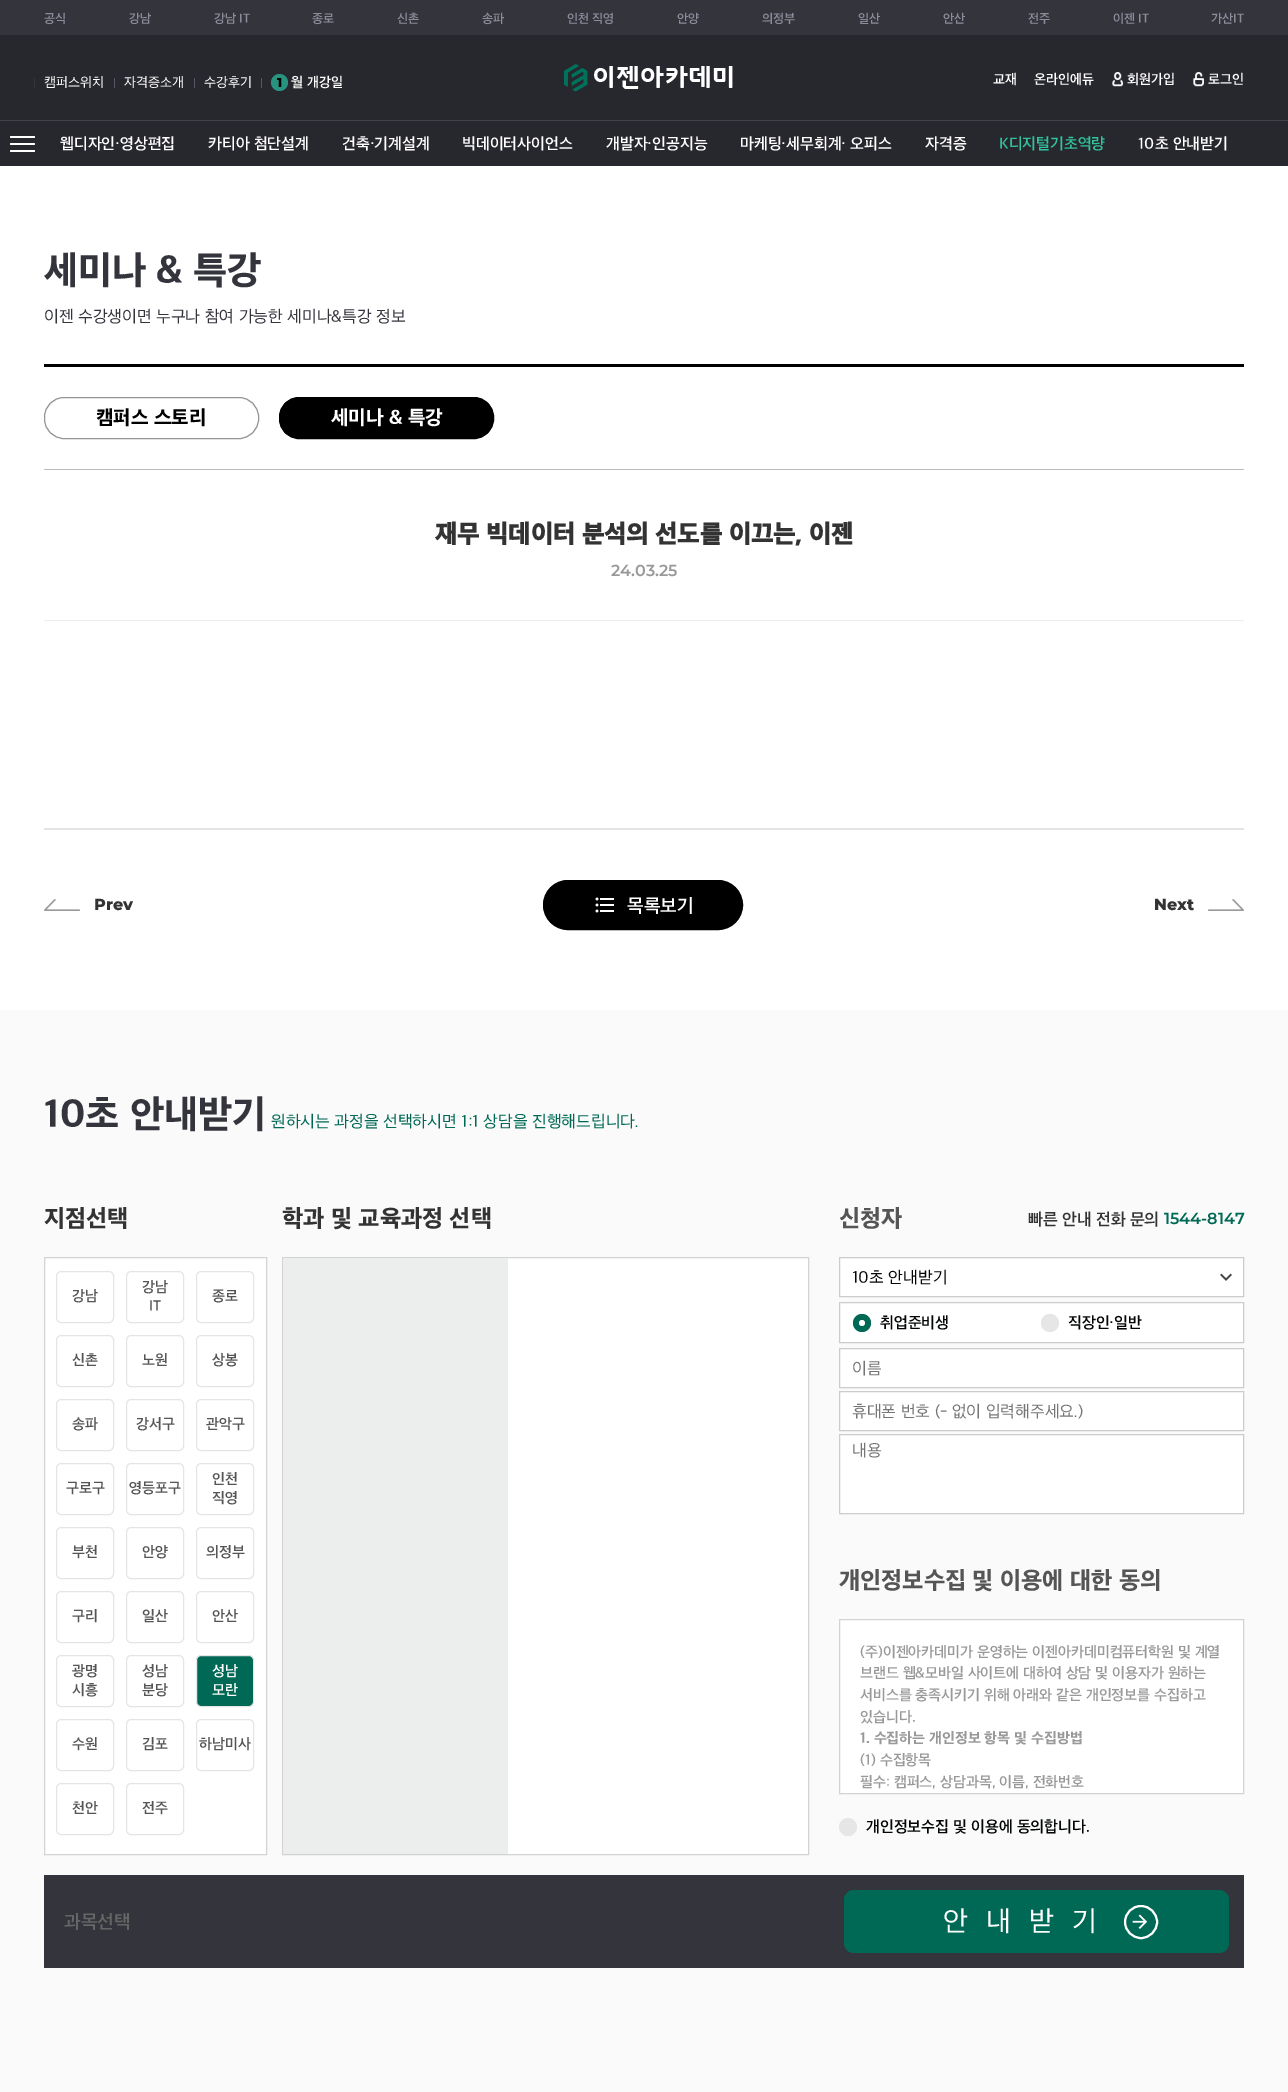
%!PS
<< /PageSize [1288 2092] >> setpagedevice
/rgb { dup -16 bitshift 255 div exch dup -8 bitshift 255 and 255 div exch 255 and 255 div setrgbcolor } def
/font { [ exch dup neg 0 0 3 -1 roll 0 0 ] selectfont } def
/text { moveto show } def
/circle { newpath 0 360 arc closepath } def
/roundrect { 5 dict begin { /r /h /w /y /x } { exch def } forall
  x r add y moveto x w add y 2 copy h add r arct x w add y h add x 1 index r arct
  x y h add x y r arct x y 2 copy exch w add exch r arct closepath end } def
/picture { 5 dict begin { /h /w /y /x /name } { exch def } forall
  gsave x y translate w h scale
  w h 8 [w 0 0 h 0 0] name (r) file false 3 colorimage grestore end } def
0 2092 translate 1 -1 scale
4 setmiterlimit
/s1 { /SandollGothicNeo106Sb-Regular 12 font 16#8C8C9B rgb } def
/s2 { /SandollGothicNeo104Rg-Regular 13 font 16#FFFFFF rgb } def
/s3 { /Montserrat-Thin 13 font 16#000000 rgb } def
/s4 { /SandollGothicNeo106Sb-Regular 13 font 16#FFFFFF rgb } def
/s5 { /SandollGothicNeo106Sb-Regular 15 font 16#FFFFFF rgb } def
/s6 { /SandollGothicNeo106Sb-Regular 15 font 16#32C29D rgb } def
/s7 { /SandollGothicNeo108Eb-Regular 37 font 16#34343D rgb } def
/s8 { /SandollGothicNeo104Rg-Regular 16 font 16#34343D rgb } def
/s9 { /SandollGothicNeo108Eb-Regular 19 font 16#000000 rgb } def
/s10 { /SandollGothicNeo108Eb-Regular 19 font 16#FFFFFF rgb } def
/s11 { /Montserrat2-Thin 16 font 16#999999 rgb } def
/s12 { /Montserrat-Thin 16 font 16#333333 rgb } def
/s13 { /SandollGothicNeo106Sb-Regular 18 font 16#FFFFFF rgb } def
/s14 { /SandollGothicNeo104Rg-Regular 16 font 16#006955 rgb } def
/s15 { /SandollGothicNeo108Eb-Regular 23 font 16#333333 rgb } def
/s16 { /SandollGothicNeo106Sb-Regular 14 font 16#555555 rgb } def
/s17 { /SandollGothicNeo106Sb-Regular 14 font 16#FFFFFF rgb } def
/s18 { /SandollGothicNeo108Eb-Regular 23 font 16#555555 rgb } def
/s19 { /SandollGothicNeo106Sb-Regular 16 font 16#333333 rgb } def
/s20 { /Montserrat2-Thin 16 font 16#006955 rgb } def
/s21 { /SandollGothicNeo104Rg-Regular 16 font 16#040606 rgb } def
/s22 { /SandollGothicNeo106Sb-Regular 15 font 16#040606 rgb } def
/s23 { /SandollGothicNeo104Rg-Regular 16 font 16#757575 rgb } def
/s24 { /SandollGothicNeo106Sb-Regular 14 font 16#999999 rgb } def
/s25 { /SandollGothicNeo108Eb-Regular 14 font 16#999999 rgb } def
/s26 { /SandollGothicNeo106Sb-Regular 18 font 16#666666 rgb } def
16#FFFFFF rgb
0 0 1288 2092 rectfill
16#34343D rgb
0 0 1288 35 rectfill
s1
(공식) 44 22 text
(강남) 129 22 text
(강남 IT) 214 22 text
(종로) 312 22 text
(신촌) 397 22 text
(송파) 482 22 text
(인천 직영) 567 22 text
(안양) 677 22 text
(의정부) 762 22 text
(일산) 858 22 text
(안산) 943 22 text
(전주) 1028 22 text
(이젠 IT) 1113 22 text
(가산IT) 1211 22 text
16#27272E rgb
0 35 1288 85 rectfill
16#34343D rgb
34 78 1 10 rectfill
s2
(캠퍼스위치) 44 86 text
16#565665 rgb
114 78 1 10 rectfill
s2
(자격증소개) 124 86 text
16#565665 rgb
194 78 1 10 rectfill
s2
(수강후기) 204 86 text
16#565665 rgb
261 78 1 10 rectfill
16#28937F rgb
279.5 82.5 8.5 circle fill
s3
(1) 277 87 text
s4
(월 개강일) 291 86 text
(pic1.raw) 564 64 169 28 picture
(교재) 993 83 text
(온라인에듀) 1034 83 text
(pic2.raw) 1112 72 12 15 picture
(회원가입) 1127 83 text
(pic3.raw) 1193 72 11 15 picture
(로그인) 1208 83 text
16#27272E rgb
0 121 1288 45 rectfill
16#FFFFFF rgb
10 136 25 2 1 roundrect fill
10 143 25 2 1 roundrect fill
10 150 25 2 1 roundrect fill
16#42424B rgb
0 120 1288 1 rectfill
s5
(웹디자인·영상편집) 60 148 text
(카티아 첨단설계) 208 148 text
(건축·기계설계) 342 148 text
(빅데이터사이언스) 462 148 text
(개발자·인공지능) 606 148 text
(마케팅·세무회계· 오피스) 740 148 text
(자격증) 925 148 text
s6
(K디지털기초역량) 999 148 text
s5
(10초 안내받기) 1138 148 text
16#000000 rgb
44 364 1200 3 rectfill
s7
(세미나 & 특강) 44 281 text
s8
(이젠 수강생이면 누구나 참여 가능한 세미나&특강 정보) 44 321 text
16#959595 rgb
44.5 397.5 214 41 19.5 roundrect stroke
s9
(캠퍼스 스토리) 96 423 text
279.5 397.5 214 41 19.5 roundrect gsave fill grestore
stroke
s10
(세미나 & 특강) 331 423 text
16#BBBBBB rgb
44 469 1200 1 rectfill
16#EBEBEB rgb
44 620 1200 1 rectfill
/SandollGothicNeo108Eb-Bold 24 font
16#333333 rgb
435 541 moveto 0.5 0 32 (재무 빅데이터 분석의 선도를 이끄는, 이젠) widthshow
s11
(24.03.25) 611 576 text
16#E4E4E4 rgb
44 828 1200 2 rectfill
(pic4.raw) 44 899 36 12 picture
s12
(Prev) 94 910 text
16#000000 rgb
543.5 880.5 199 49 24.5 roundrect gsave fill grestore
stroke
(pic5.raw) 595 897 19 16 picture
s13
(목록보기) 627 911 text
s12
(Next) 1154 910 text
(pic6.raw) 1208 899 36 12 picture
16#FAFAFA rgb
0 1010 1288 1082 rectfill
s7
(10초 안내받기) 44 1125 text
s14
(원하시는 과정을 선택하시면 1:1 상담을 진행해드립니다.) 271 1126 text
s15
(지점선택) 44 1225 text
16#FFFFFF rgb
44.5 1257.5 moveto 266.5 1257.5 lineto 266.5 1854.5 lineto 44.5 1854.5 lineto closepath gsave fill grestore
16#D3D3D3 rgb
stroke
16#E4E5E5 rgb
56.5 1271.5 57 51 4.5 roundrect stroke
s16
(강남) 72 1300 text
16#E4E5E5 rgb
126.5 1271.5 57 51 4.5 roundrect stroke
s16
(강남) 142 1291 text
(IT) 149 1310 text
16#E4E5E5 rgb
196.5 1271.5 57 51 4.5 roundrect stroke
s16
(종로) 212 1300 text
16#E4E5E5 rgb
56.5 1335.5 57 51 4.5 roundrect stroke
s16
(신촌) 72 1364 text
16#E4E5E5 rgb
126.5 1335.5 57 51 4.5 roundrect stroke
s16
(노원) 142 1364 text
16#E4E5E5 rgb
196.5 1335.5 57 51 4.5 roundrect stroke
s16
(상봉) 212 1364 text
16#E4E5E5 rgb
56.5 1399.5 57 51 4.5 roundrect stroke
s16
(송파) 72 1428 text
16#E4E5E5 rgb
126.5 1399.5 57 51 4.5 roundrect stroke
s16
(강서구) 136 1428 text
16#E4E5E5 rgb
196.5 1399.5 57 51 4.5 roundrect stroke
s16
(관악구) 206 1428 text
16#E4E5E5 rgb
56.5 1463.5 57 51 4.5 roundrect stroke
s16
(구로구) 66 1492 text
16#E4E5E5 rgb
126.5 1463.5 57 51 4.5 roundrect stroke
s16
(영등포구) 129 1492 text
16#E4E5E5 rgb
196.5 1463.5 57 51 4.5 roundrect stroke
s16
(인천) 212 1483 text
(직영) 212 1502 text
16#E4E5E5 rgb
56.5 1527.5 57 51 4.5 roundrect stroke
s16
(부천) 72 1556 text
16#E4E5E5 rgb
126.5 1527.5 57 51 4.5 roundrect stroke
s16
(안양) 142 1556 text
16#E4E5E5 rgb
196.5 1527.5 57 51 4.5 roundrect stroke
s16
(의정부) 206 1556 text
16#E4E5E5 rgb
56.5 1591.5 57 51 4.5 roundrect stroke
s16
(구리) 72 1620 text
16#E4E5E5 rgb
126.5 1591.5 57 51 4.5 roundrect stroke
s16
(일산) 142 1620 text
16#E4E5E5 rgb
196.5 1591.5 57 51 4.5 roundrect stroke
s16
(안산) 212 1620 text
16#E4E5E5 rgb
56.5 1655.5 57 51 4.5 roundrect stroke
s16
(광명) 72 1675 text
(시흥) 72 1694 text
16#E4E5E5 rgb
126.5 1655.5 57 51 4.5 roundrect stroke
s16
(성남) 142 1675 text
(분당) 142 1694 text
16#006955 rgb
196.5 1655.5 57 51 4.5 roundrect gsave fill grestore
16#E4E5E5 rgb
stroke
s17
(성남) 212 1675 text
(모란) 212 1694 text
16#E4E5E5 rgb
56.5 1719.5 57 51 4.5 roundrect stroke
s16
(수원) 72 1748 text
16#E4E5E5 rgb
126.5 1719.5 57 51 4.5 roundrect stroke
s16
(김포) 142 1748 text
16#E4E5E5 rgb
196.5 1719.5 57 51 4.5 roundrect stroke
s16
(하남미사) 199 1748 text
16#E4E5E5 rgb
56.5 1783.5 57 51 4.5 roundrect stroke
s16
(천안) 72 1812 text
16#E4E5E5 rgb
126.5 1783.5 57 51 4.5 roundrect stroke
s16
(전주) 142 1812 text
s15
(학과 및 교육과정 선택) 282 1225 text
16#FFFFFF rgb
508 1258 300 596 rectfill
16#D3D3D3 rgb
282.5 1257.5 526 597 rectstroke
16#ECEDED rgb
283 1258 225 596 rectfill
s18
(신청자) 839 1225 text
s19
(빠른 안내 전화 문의) 1028 1224 text
s20
(1544-8147) 1164 1224 text
16#FFFFFF rgb
840 1258 403 38 rectfill
(pic7.raw) 1220 1273 12 8 picture
16#CCCCCC rgb
839.5 1257.5 404 39 rectstroke
s21
(10초 안내받기) 852 1282 text
16#FFFFFF rgb
839.5 1302.5 moveto 1243.5 1302.5 lineto 1243.5 1342.5 lineto 839.5 1342.5 lineto closepath gsave fill grestore
16#CCCCCC rgb
stroke
16#006955 rgb
862 1323 9 circle fill
16#FFFFFF rgb
862 1323 3 circle fill
s22
(취업준비생) 880 1327 text
16#E6E6E6 rgb
1050 1323 9 circle fill
s22
(직장인·일반) 1068 1327 text
16#FFFFFF rgb
839.5 1348.5 moveto 1243.5 1348.5 lineto 1243.5 1387.5 lineto 839.5 1387.5 lineto closepath gsave fill grestore
16#CCCCCC rgb
stroke
s23
(이름) 852 1373 text
16#FFFFFF rgb
839.5 1391.5 moveto 1243.5 1391.5 lineto 1243.5 1430.5 lineto 839.5 1430.5 lineto closepath gsave fill grestore
16#CCCCCC rgb
stroke
s23
(휴대폰 번호 \(- 없이 입력해주세요.\)) 852 1416 text
16#FFFFFF rgb
839.5 1434.5 moveto 1243.5 1434.5 lineto 1243.5 1513.5 lineto 839.5 1513.5 lineto closepath gsave fill grestore
16#CCCCCC rgb
stroke
s23
(내용) 852 1455 text
s18
(개인정보수집 및 이용에 대한 동의) 839 1587 text
16#FFFFFF rgb
839.5 1619.5 moveto 1243.5 1619.5 lineto 1243.5 1793.5 lineto 839.5 1793.5 lineto closepath gsave fill grestore
16#D3D3D3 rgb
stroke
s24
(\(주\)이젠아카데미가 운영하는 이젠아카데미컴퓨터학원 및 계열) 860 1656 text
(브랜드 웹&모바일 사이트에 대하여 상담 및 이용자가 원하는) 860 1677 text
(서비스를 충족시키기 위해 아래와 같은 개인정보를 수집하고) 860 1699 text
(있습니다.) 860 1721 text
s25
(1. 수집하는 개인정보 항목 및 수집방법) 860 1742 text
s24
(\(1\) 수집항목) 860 1764 text
(필수: 캠퍼스, 상담과목, 이름, 전화번호) 860 1786 text
16#E6E6E6 rgb
848 1827 9 circle fill
s22
(개인정보수집 및 이용에 동의합니다.) 866 1831 text
16#34343D rgb
44 1875 1200 93 rectfill
s26
(과목선택) 64 1927 text
16#006955 rgb
844 1890 385 63 10 roundrect fill
/SandollGothicNeo104Rg-Regular 27 font
16#FFFFFF rgb
943 1929 moveto 18 0 (안내받기) ashow
2 setlinewidth
1141 1922 16 circle stroke
(pic8.raw) 1132 1914 16 15 picture
showpage
